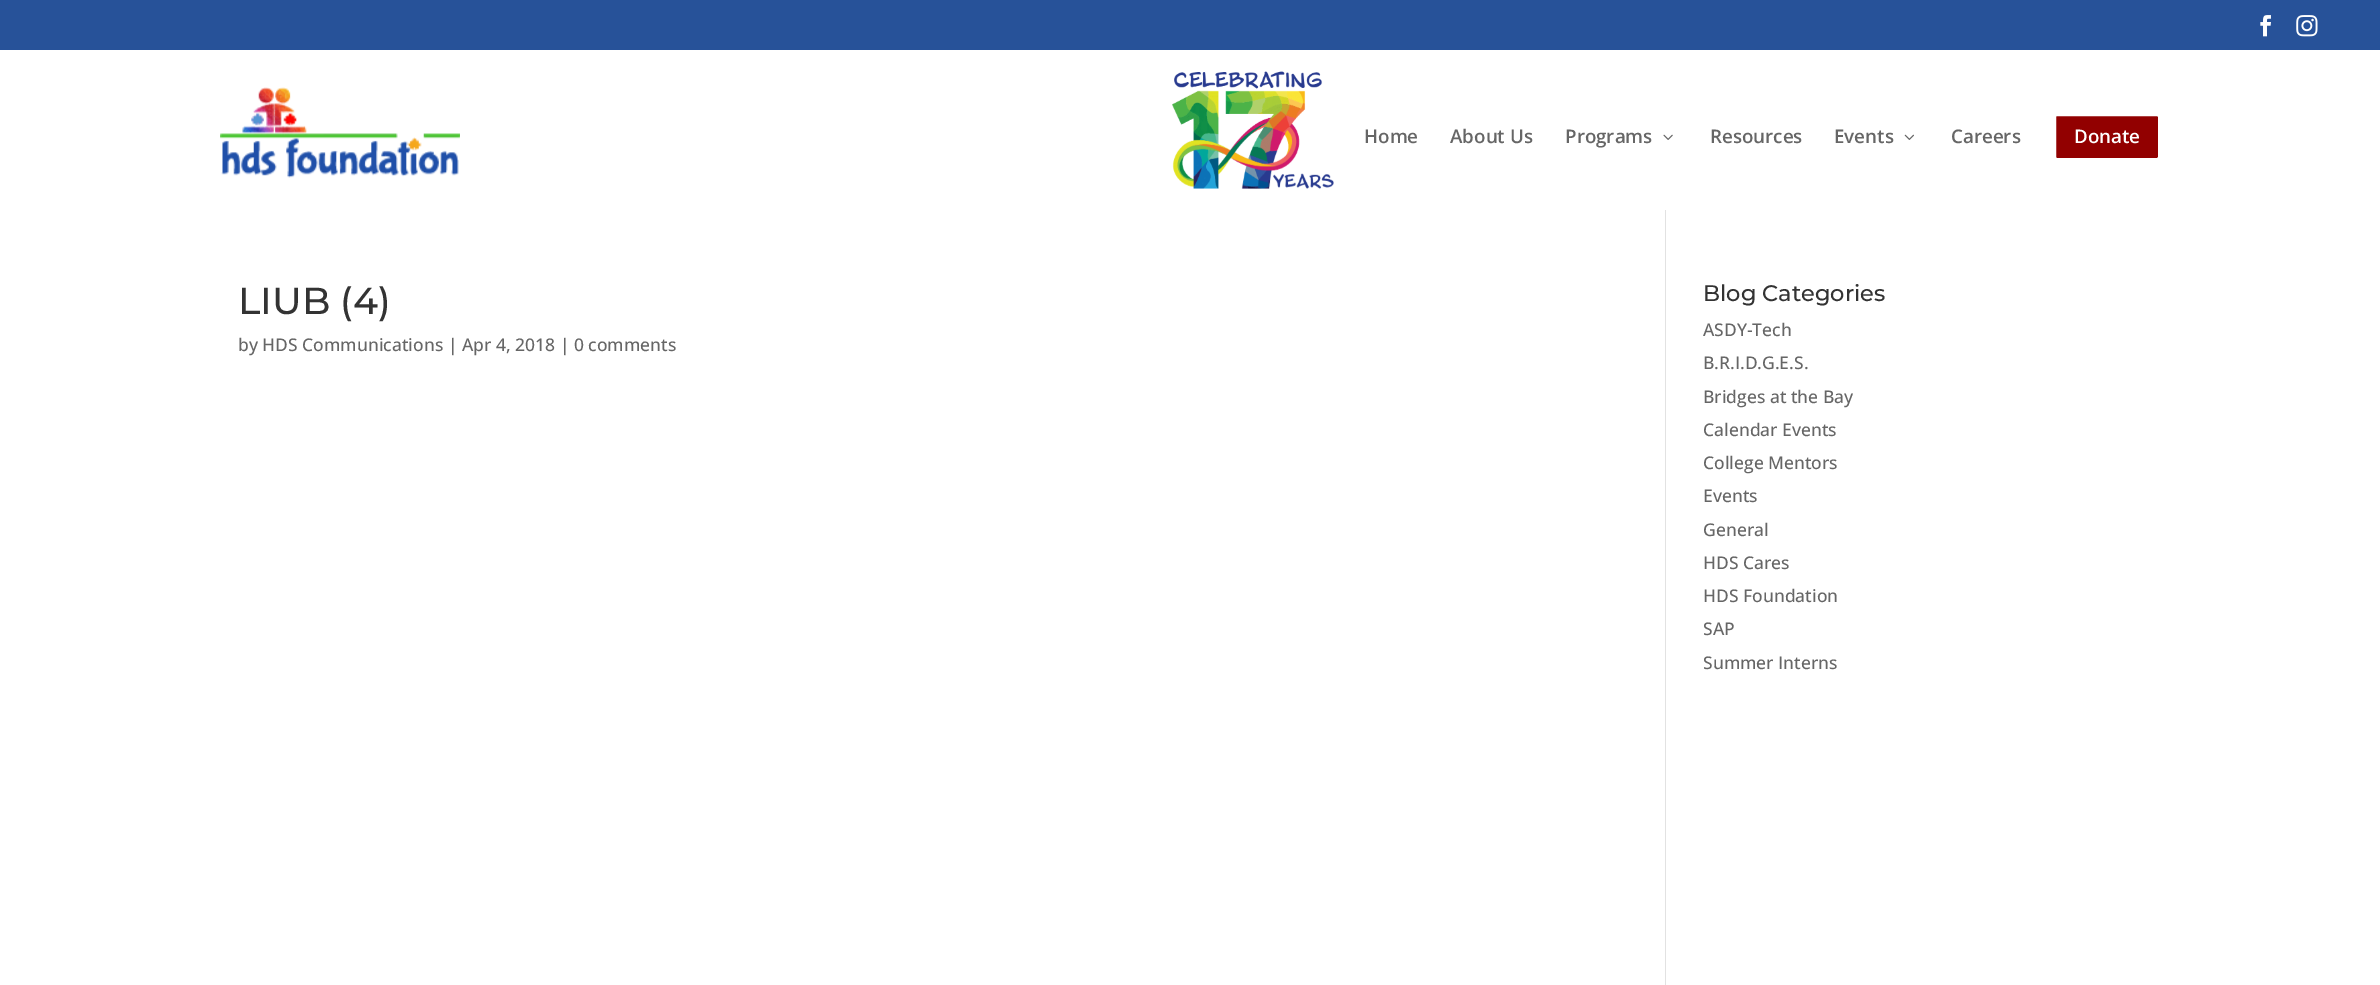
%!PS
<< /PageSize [2380 985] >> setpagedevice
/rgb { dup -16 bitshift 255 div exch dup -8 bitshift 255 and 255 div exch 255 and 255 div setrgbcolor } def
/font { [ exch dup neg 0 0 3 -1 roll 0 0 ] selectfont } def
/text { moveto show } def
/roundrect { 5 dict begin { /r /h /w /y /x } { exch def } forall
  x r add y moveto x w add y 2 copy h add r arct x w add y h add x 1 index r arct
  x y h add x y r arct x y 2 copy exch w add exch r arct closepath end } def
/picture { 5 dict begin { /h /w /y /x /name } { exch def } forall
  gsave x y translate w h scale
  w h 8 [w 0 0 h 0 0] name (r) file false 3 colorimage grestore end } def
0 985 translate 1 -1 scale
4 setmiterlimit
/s1 { /OpenSans-SemiBold 18.75 font 16#666666 rgb } def
/s2 { /OpenSans-SemiBold 18.75 font 16#FFFFFF rgb } def
/s3 { /Montserrat-Medium 37.5 font 16#333333 rgb } def
/s4 { /OpenSans-Medium 17.5 font 16#666666 rgb } def
/s5 { /Montserrat-Medium 22.5 font 16#333333 rgb } def
16#FFFFFF rgb
0 0 2380 985 rectfill
16#275299 rgb
0 0 2380 50 rectfill
(pic1.raw) 2260 15 11 22 picture
(pic2.raw) 2296 15 22 22 picture
(pic3.raw) 220 87 240 91 picture
(pic4.raw) 1172 71 162 118 picture
s1
(Home) 1364 143 text
(About Us) 1450 143 text
(Programs) 1565 143 text
(pic5.raw) 1663 134 10 6 picture
(Resources) 1710 143 text
(Events) 1834 143 text
(pic6.raw) 1904 134 10 6 picture
(Careers) 1951 143 text
16#920000 rgb
2054.5 114.5 105 45 2.5 roundrect gsave fill grestore
16#FFFFFF rgb
3 setlinewidth
stroke
(Donate) 2074 143 text
16#E2E2E2 rgb
1665 210 1 775 rectfill
s3
(LIUB \(4\)) 238 314 text
s4
(by HDS Communications | Apr 4, 2018 | 0 comments) 238 351 text
s5
(Blog Categories) 1703 301 text
s4
(ASDY-Tech) 1703 336 text
(B.R.I.D.G.E.S.) 1703 369 text
(Bridges at the Bay) 1703 403 text
(Calendar Events) 1703 436 text
(College Mentors) 1703 469 text
(Events) 1703 502 text
(General) 1703 536 text
(HDS Cares) 1703 569 text
(HDS Foundation) 1703 602 text
(SAP) 1703 635 text
(Summer Interns) 1703 669 text
showpage
